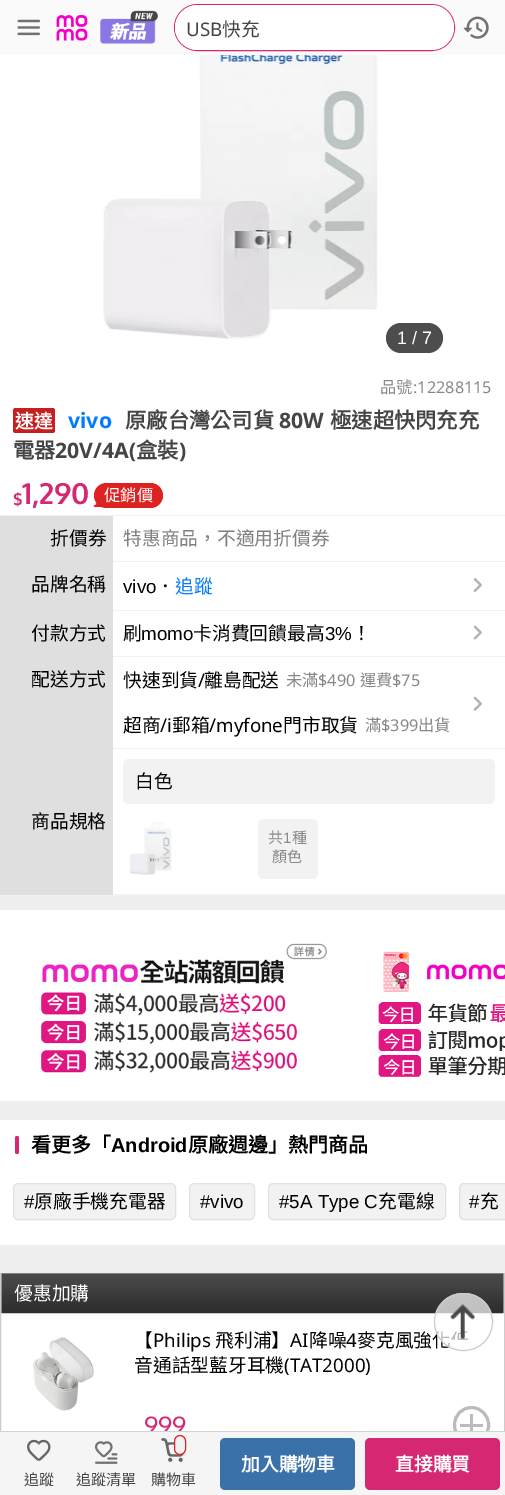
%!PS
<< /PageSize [505 1495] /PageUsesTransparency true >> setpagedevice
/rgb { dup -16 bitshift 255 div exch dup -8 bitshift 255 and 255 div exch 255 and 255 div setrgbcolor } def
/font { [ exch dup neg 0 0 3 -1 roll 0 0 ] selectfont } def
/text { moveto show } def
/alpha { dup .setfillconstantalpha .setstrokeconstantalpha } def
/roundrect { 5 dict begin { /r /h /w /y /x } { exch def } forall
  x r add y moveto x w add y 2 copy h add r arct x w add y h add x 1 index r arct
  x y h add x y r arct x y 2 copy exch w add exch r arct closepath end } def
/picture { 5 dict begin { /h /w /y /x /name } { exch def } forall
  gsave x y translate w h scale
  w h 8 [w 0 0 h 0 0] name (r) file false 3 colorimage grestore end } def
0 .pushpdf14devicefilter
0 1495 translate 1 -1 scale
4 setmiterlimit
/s1 { /NotoSans-Regular 18.75 font 16#454545 rgb } def
/s2 { /NotoSansCJKTC-Regular 18.75 font 16#454545 rgb } def
/s3 { /LiberationSans-Regular 18 font 16#FFFFFF rgb } def
/s4 { /NotoSansCJKTC-Regular 16.25 font 16#888888 rgb } def
/s5 { /NotoSans-Regular 16.25 font 16#888888 rgb } def
/s6 { /NotoSans-Bold 21.25 font 16#027BFF rgb } def
/s7 { /NotoSansCJKTC-Bold 21.25 font 16#454545 rgb } def
/s8 { /NotoSans-Bold 21.25 font 16#454545 rgb } def
/s9 { /NotoSansCJKTC-Bold 18.75 font 16#FFFFFF rgb } def
/s10 { /Oxygen-Bold 16.25 font 16#D62872 rgb } def
/s11 { /Oxygen-Bold 29 font 16#D62872 rgb } def
/s12 { /NotoSansCJKTC-Regular 16.25 font 16#FFFFFF rgb } def
/s13 { /NotoSansCJKTC-Regular 18.75 font 16#000000 rgb } def
/s14 { /NotoSansCJKTC-Regular 18.75 font 16#808080 rgb } def
/s15 { /LiberationSans-Regular 18.75 font 16#000000 rgb } def
/s16 { /NotoSansCJKTC-Regular 18.75 font 16#027BFF rgb } def
/s17 { /NotoSans-Regular 18.75 font 16#000000 rgb } def
/s18 { /NotoSansCJKTC-Regular 15 font 16#888888 rgb } def
/s19 { /LiberationSans-Regular 15 font 16#888888 rgb } def
/s20 { /NotoSansCJKTC-Bold 20 font 16#000000 rgb } def
/s21 { /LiberationSans-Bold 20 font 16#000000 rgb } def
/s22 { /NotoSansCJKTC-Regular 18.75 font 16#FFFFFF rgb } def
/s23 { /Oxygen-Regular 25 font 16#D62872 rgb } def
/s24 { /NotoSansCJKTC-Regular 15 font 16#454545 rgb } def
16#EEEEEE rgb
0 0 505 1495 rectfill
16#FAFAFA rgb
0 0 505 55 rectfill
(pic1.raw) 17 19 24 17 picture
(pic2.raw) 56 15 32 26 picture
(pic3.raw) 100 10 58 34 picture
16#D62872 rgb
174.5 4.5 280 46 23 roundrect stroke
16#FFFFFF rgb
175 5 279 45 22.5 roundrect fill
175 16 274 25 12.5 roundrect fill
s1
(USB) 186 36 text
s2
(快充) 222 36 text
(pic4.raw) 463 16 26 23 picture
16#FFFFFF rgb
0 55 505 839 rectfill
(pic5.raw) 103 55 275 284 picture
16#4D4D4D rgb
386 323 57 30 15 roundrect fill
s3
(1 / 7) 397 344 text
s4
(品號) 380 393 text
s5
(:12288115) 413 393 text
s6
(vivo) 68 428 text
s7
(原廠台灣公司貨) 125 428 text
s8
(80W) 279 428 text
s7
(極速超快閃充充) 330 428 text
(電器) 13 458 text
s8
(20V/4A\() 55 458 text
s7
(盒裝) 136 458 text
s8
(\)) 179 458 text
16#C71F1F rgb
13 408 42 25 2.5 roundrect fill
s9
(速達) 15 428 text
s10
($) 13 505 text
s11
(1,290) 22 504 text
16#DD2222 rgb
94 483 69 25 12.5 roundrect fill
s12
(促銷價) 104 501 text
(pic6.raw) 93 502 9 5 picture
16#F2F2F2 rgb
0 515 505 1 rectfill
0 895 505 1 rectfill
16#DFDFDF rgb
0 516 113 379 rectfill
s13
(折價券) 50 545 text
16#F2F2F2 rgb
113 561 392 1 rectfill
s14
(特惠商品，不適用折價券) 123 545 text
s13
(品牌名稱) 31 591 text
16#F2F2F2 rgb
113 610 392 1 rectfill
s15
(vivo) 123 593 text
s13
(．) 156 593 text
s16
(追蹤) 175 593 text
(pic7.raw) 473 578 9 14 picture
s13
(付款方式) 31 640 text
16#F2F2F2 rgb
113 656 392 1 rectfill
s13
(刷) 123 640 text
s15
(momo) 141 640 text
s13
(卡消費回饋最高) 193 640 text
s15
(3%) 325 640 text
s13
(！) 352 640 text
(pic8.raw) 473 625 9 15 picture
(配送方式) 31 686 text
16#F2F2F2 rgb
113 748 392 1 rectfill
s13
(快速到貨) 123 687 text
s17
(/) 198 687 text
s13
(離島配送) 204 687 text
s4
(未滿) 286 686 text
s5
($490) 318 686 text
s4
(運費) 360 686 text
s5
($75) 392 686 text
(pic9.raw) 473 696 9 15 picture
s13
(超商) 123 732 text
s17
(/i) 160 732 text
s13
(郵箱) 172 732 text
s17
(/myfone) 209 732 text
s13
(門市取貨) 283 732 text
s4
(滿) 365 731 text
s5
($399) 381 731 text
s4
(出貨) 418 731 text
s13
(商品規格) 31 828 text
16#F2F2F2 rgb
113 894 392 1 rectfill
123 759 372 45 6 roundrect fill
s13
(白色) 135 788 text
(pic10.raw) 130 822 42 53 picture
16#F2F2F2 rgb
258 819 60 60 5 roundrect fill
s18
(共) 268 843 text
s19
(1) 283 843 text
s18
(種) 292 843 text
(顏色) 272 862 text
16#FFFFFF rgb
0 910 505 191 rectfill
(pic11.raw) 41 943 286 130 picture
(pic12.raw) 378 951 127 126 picture
0 1120 505 125 rectfill
16#D62872 rgb
15 1136 4 18 2 roundrect fill
s20
(看更多「) 31 1152 text
s21
(Android) 111 1152 text
s20
(原廠週邊」熱門商品) 188 1152 text
16#F2F2F2 rgb
13.5 1183.5 162 36 4.5 roundrect gsave fill grestore
16#E1E1E1 rgb
stroke
s15
(#) 24 1208 text
s13
(原廠手機充電器) 34 1208 text
16#F2F2F2 rgb
189.5 1183.5 65 36 4.5 roundrect gsave fill grestore
16#E1E1E1 rgb
stroke
s15
(#vivo) 200 1208 text
16#F2F2F2 rgb
268.5 1183.5 177 36 4.5 roundrect gsave fill grestore
16#E1E1E1 rgb
stroke
s15
(#5A Type C) 279 1208 text
s13
(充電線) 378 1208 text
16#F2F2F2 rgb
464 1183 moveto 505 1183 lineto 505 1220 lineto 464 1220 lineto 461 1220 459 1218 459 1215 curveto 459 1188 lineto 459 1185 461 1183 464 1183 curveto closepath fill
16#E1E1E1 rgb
459.5 1183.5 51 36 4.5 roundrect stroke
s15
(#) 469 1208 text
s13
(充) 480 1208 text
16#FFFFFF rgb
1 1274 503 157 rectfill
16#CCCCCC rgb
0.5 1273.5 504 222 rectstroke
(pic13.raw) 1 1273 503 41 picture
s22
(優惠加購) 14 1300 text
(pic14.raw) 33 1337 61 74 picture
s13
(【) 134 1347 text
s17
(Philips) 153 1347 text
s13
(飛利浦】) 215 1347 text
s17
(AI) 290 1347 text
s13
(降噪) 309 1347 text
s17
(4) 346 1347 text
s13
(麥克風強化) 357 1347 text
(音通話型藍牙耳機) 134 1372 text
s17
(\(TAT2000\)) 284 1372 text
s23
(999) 144 1435 text
16#BBBBBB rgb
3 setlinewidth
454.5 1407.5 34 35 17 roundrect stroke
460 1424 23 3 rectfill
470 1414 3 22 rectfill
0.7 alpha
16#FFFFFF rgb
434 1293 59 58 29 roundrect fill
1 alpha
(pic15.raw) 450 1304 25 36 picture
16#CCCCCC rgb
1 setlinewidth
434.5 1293.5 58 57 28.5 roundrect stroke
16#F5F5F5 rgb
0 1432 505 63 rectfill
16#D4D4D4 rgb
0 1431 505 1 rectfill
16#3A71A9 rgb
220 1438 135 52 5 roundrect fill
s9
(加入購物車) 241 1471 text
16#D62872 rgb
365 1438 135 52 5 roundrect fill
s9
(直接購買) 395 1471 text
(pic16.raw) 27 1439 24 22 picture
s24
(追蹤) 24 1485 text
(pic17.raw) 95 1441 23 23 picture
(追蹤清單) 76 1485 text
(pic18.raw) 161 1438 25 24 picture
16#F2F2F2 rgb
174.5 1435.5 11 19 5.5 roundrect gsave fill grestore
16#DD2726 rgb
stroke
s24
(購物車) 151 1485 text
.poppdf14devicefilter showpage
